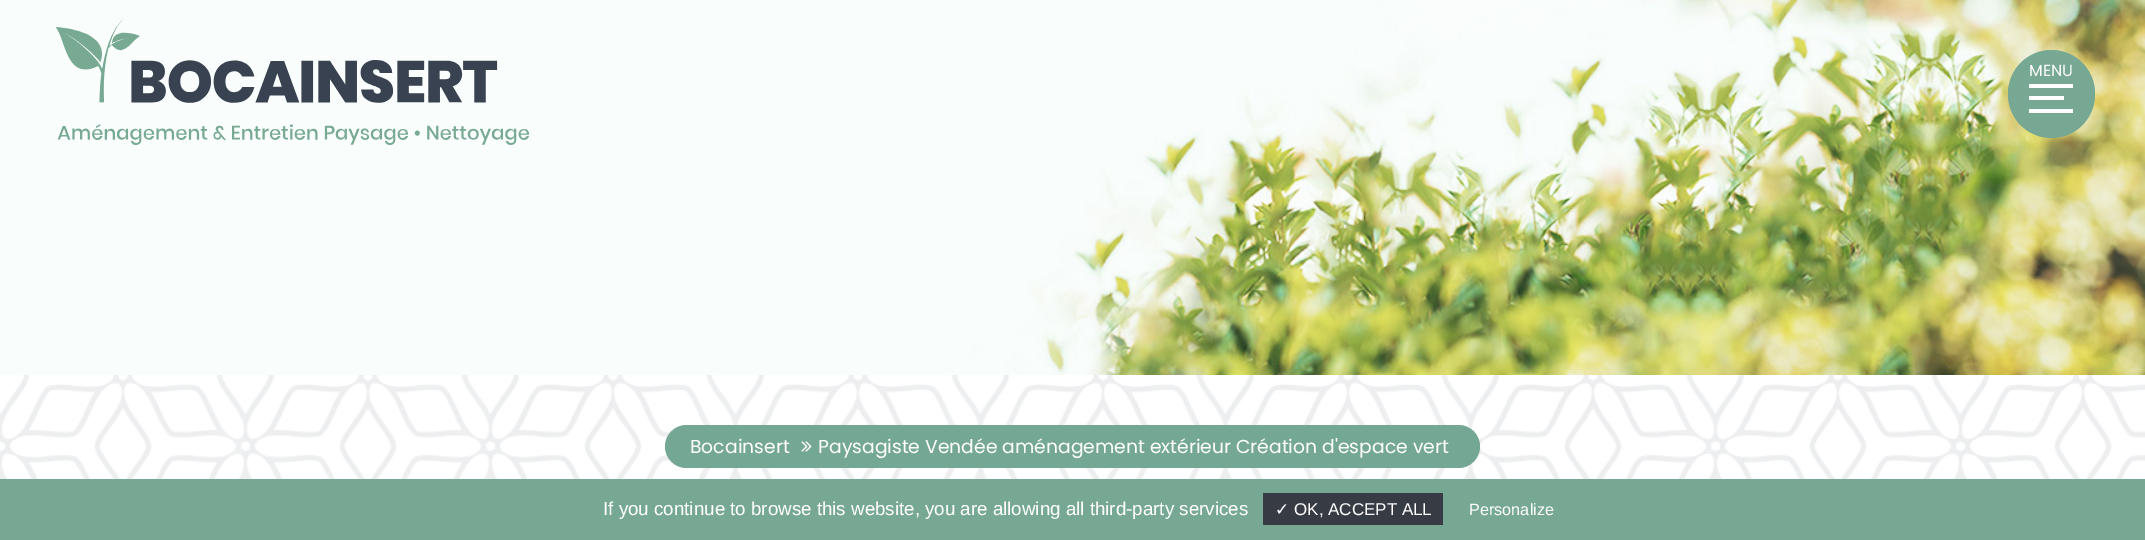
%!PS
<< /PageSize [2145 540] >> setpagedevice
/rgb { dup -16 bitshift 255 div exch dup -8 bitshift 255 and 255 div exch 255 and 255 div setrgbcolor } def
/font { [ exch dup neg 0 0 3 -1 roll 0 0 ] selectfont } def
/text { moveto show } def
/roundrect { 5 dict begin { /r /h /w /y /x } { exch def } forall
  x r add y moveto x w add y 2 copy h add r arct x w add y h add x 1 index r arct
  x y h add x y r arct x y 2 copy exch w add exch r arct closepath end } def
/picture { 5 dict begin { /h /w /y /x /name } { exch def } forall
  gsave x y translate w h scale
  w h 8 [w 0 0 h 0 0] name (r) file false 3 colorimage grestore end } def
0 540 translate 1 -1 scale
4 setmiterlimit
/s1 { /Poppins-Regular 16 font 16#FFFFFF rgb } def
/s2 { /Poppins-Regular 18.75 font 16#FFFFFF rgb } def
/s3 { /LiberationSans-Regular 18.75 font 16#FFFFFF rgb } def
/s4 { /DejaVuSans-Regular 17 font 16#FFFFFF rgb } def
/s5 { /LiberationSans-Regular 17 font 16#FFFFFF rgb } def
/s6 { /LiberationSans-Regular 16.25 font 16#FFFFFF rgb } def
16#FFFFFF rgb
0 0 2145 540 rectfill
(pic1.raw) 0 0 2145 375 picture
(pic2.raw) 55 19 474 126 picture
16#76A893 rgb
2008 50 87 88 43.5 roundrect fill
s1
(MENU) 2029 76 text
2029 96 35 4 rectfill
2029 84 44 4 rectfill
2029 109 44 4 rectfill
(pic3.raw) 0 375 2145 104 picture
16#75A894 rgb
665 425 815 43 21.5 roundrect fill
s2
(Bocainsert) 690 453 text
(pic4.raw) 801 441 11 11 picture
(Paysagiste Vendée aménagement extérieur Création d'espace vert) 818 453 text
16#76A893 rgb
0 479 2145 61 rectfill
s3
(If you continue to browse this website, you are allowing all third-party services) 603 515 text
16#373C44 rgb
1263 493 180 32 rectfill
s4
(✓) 1275 515 text
s5
(OK, ACCEPT ALL) 1294 515 text
s6
(Personalize) 1469 515 text
showpage
